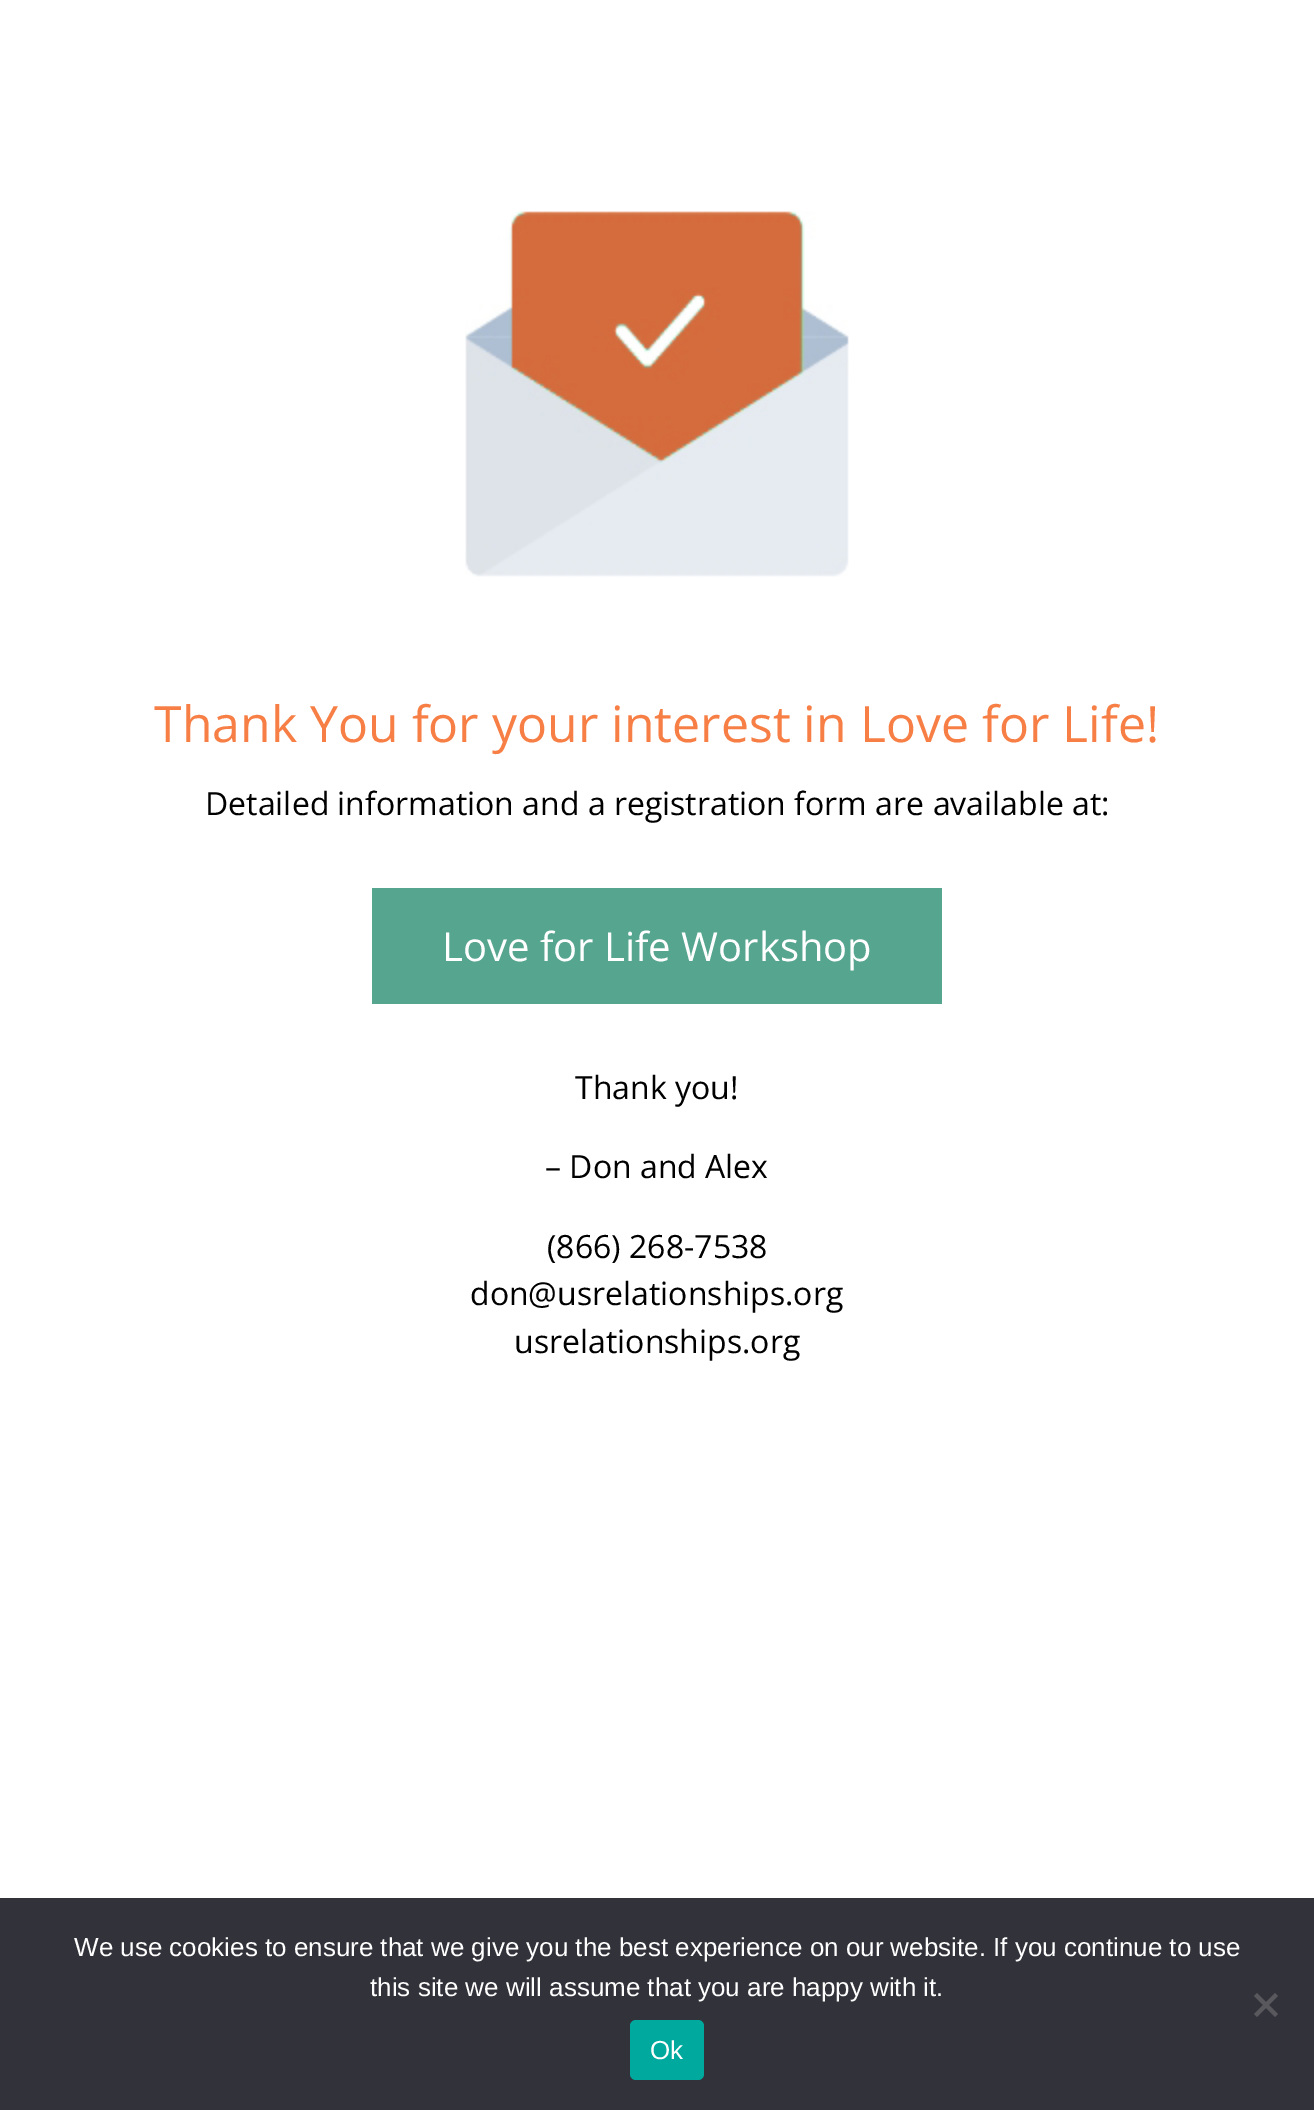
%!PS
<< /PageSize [1314 2110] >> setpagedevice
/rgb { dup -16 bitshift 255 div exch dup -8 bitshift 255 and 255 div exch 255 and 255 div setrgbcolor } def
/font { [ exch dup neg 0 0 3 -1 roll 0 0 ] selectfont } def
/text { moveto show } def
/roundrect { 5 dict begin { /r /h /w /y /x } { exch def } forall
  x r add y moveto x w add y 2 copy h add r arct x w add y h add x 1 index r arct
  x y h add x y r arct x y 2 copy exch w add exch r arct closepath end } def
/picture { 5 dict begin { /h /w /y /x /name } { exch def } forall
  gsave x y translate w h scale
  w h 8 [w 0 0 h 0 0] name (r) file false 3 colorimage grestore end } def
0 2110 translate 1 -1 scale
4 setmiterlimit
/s1 { /OpenSans-Regular 50 font 16#F77F45 rgb } def
/s2 { /OpenSans-Regular 32 font 16#000000 rgb } def
/s3 { /OpenSans-Regular 40 font 16#FFFFFF rgb } def
/s4 { /LiberationSans-Regular 26 font 16#FFFFFF rgb } def
16#FFFFFF rgb
0 0 1314 2110 rectfill
(pic1.raw) 465 211 384 366 picture
s1
(Thank You for your interest in Love for Life!) 154 742 text
s2
(Detailed information and a registration form are available at:) 205 815 text
16#56A58F rgb
372 888 570 116 rectfill
s3
(Love for Life Workshop) 442 961 text
s2
(Thank you!) 575 1099 text
(– Don and Alex) 545 1178 text
(\(866\) 268-7538) 547 1258 text
(don@usrelationships.org) 470 1305 text
(usrelationships.org) 514 1353 text
16#32323A rgb
0 1898 1314 212 rectfill
s4
(We use cookies to ensure that we give you the best experience on our website. If you continue to use) 74 1956 text
(this site we will assume that you are happy with it.) 370 1996 text
16#59595D rgb
1275 1993 moveto 1278 1996 lineto 1257 2017 lineto 1254 2014 lineto closepath fill
1254 1996 moveto 1257 1993 lineto 1278 2014 lineto 1275 2017 lineto closepath fill
16#00A99D rgb
630 2020 74 60 6 roundrect fill
s4
(Ok) 650 2059 text
showpage
